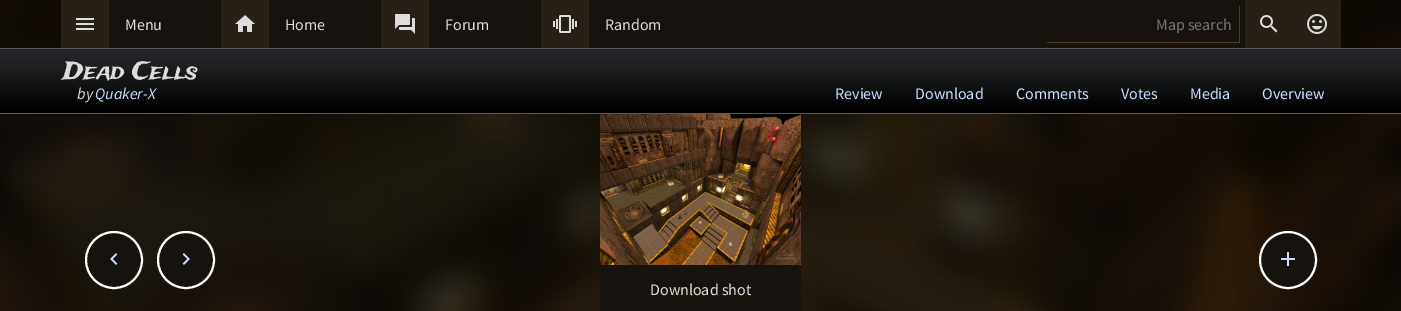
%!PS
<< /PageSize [1401 311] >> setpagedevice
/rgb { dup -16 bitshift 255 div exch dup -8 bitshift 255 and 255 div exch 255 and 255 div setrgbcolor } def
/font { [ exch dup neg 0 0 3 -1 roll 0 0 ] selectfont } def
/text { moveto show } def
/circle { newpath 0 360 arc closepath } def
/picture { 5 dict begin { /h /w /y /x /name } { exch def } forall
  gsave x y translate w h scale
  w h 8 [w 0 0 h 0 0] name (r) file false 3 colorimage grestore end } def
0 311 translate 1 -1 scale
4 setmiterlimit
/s1 { /SourceSansPro-Regular 16 font 16#DDDDDD rgb } def
/s2 { /SourceSansPro-Regular 16 font 16#757575 rgb } def
/s3 { /TradeWinds-Regular 24 font 16#DDDDDD rgb } def
/s4 { /SourceSansPro-Italic 16 font 16#DDDDDD rgb } def
/s5 { /SourceSansPro-Italic 16 font 16#CCDDFF rgb } def
/s6 { /SourceSansPro-Regular 16 font 16#CCDDFF rgb } def
/s7 { /SourceSansPro-Regular 16 font 16#E2DBD3 rgb } def
16#FFFFFF rgb
0 0 1401 311 rectfill
(pic1.raw) 0 0 1401 311 picture
16#16130F rgb
109 0 1136 48 rectfill
16#282016 rgb
61 0 48 48 rectfill
(pic2.raw) 76 18 18 12 picture
s1
(Menu) 125 30 text
16#282016 rgb
221 0 48 48 rectfill
(pic3.raw) 235 15 20 17 picture
s1
(Home) 285 30 text
16#282016 rgb
381 0 48 48 rectfill
(pic4.raw) 395 14 20 20 picture
s1
(Forum) 445 30 text
16#282016 rgb
541 0 48 48 rectfill
(pic5.raw) 553 15 24 18 picture
s1
(Random) 605 30 text
16#543C22 rgb
1239 6 1 37 rectfill
1047 42 193 1 rectfill
s2
(Map search) 1156 30 text
16#282016 rgb
1245 0 96 48 rectfill
(pic6.raw) 1260 15 18 18 picture
(pic7.raw) 1307 14 20 20 picture
(pic8.raw) 0 49 1401 64 picture
16#56585D rgb
0 48 1401 1 rectfill
0 113 1401 1 rectfill
s3
(Dead Cells) 63 79 text
s4
(by) 77 99 text
s5
(Quaker-X) 95 99 text
s6
(Review) 835 99 text
(Download) 915 99 text
(Comments) 1016 99 text
(Votes) 1121 99 text
(Media) 1190 99 text
(Overview) 1262 99 text
16#16130F rgb
114 260 28 circle gsave fill grestore
16#FFFFFF rgb
2 setlinewidth
stroke
(pic9.raw) 110 253 8 12 picture
16#16130F rgb
186 260 28 circle gsave fill grestore
16#FFFFFF rgb
stroke
(pic10.raw) 182 253 8 12 picture
16#16130F rgb
1288 260 28 circle gsave fill grestore
16#FFFFFF rgb
stroke
(pic11.raw) 1281 252 14 14 picture
(pic12.raw) 600 114 201 151 picture
16#16130F rgb
600 265 201 46 rectfill
s7
(Download shot) 650 295 text
showpage
